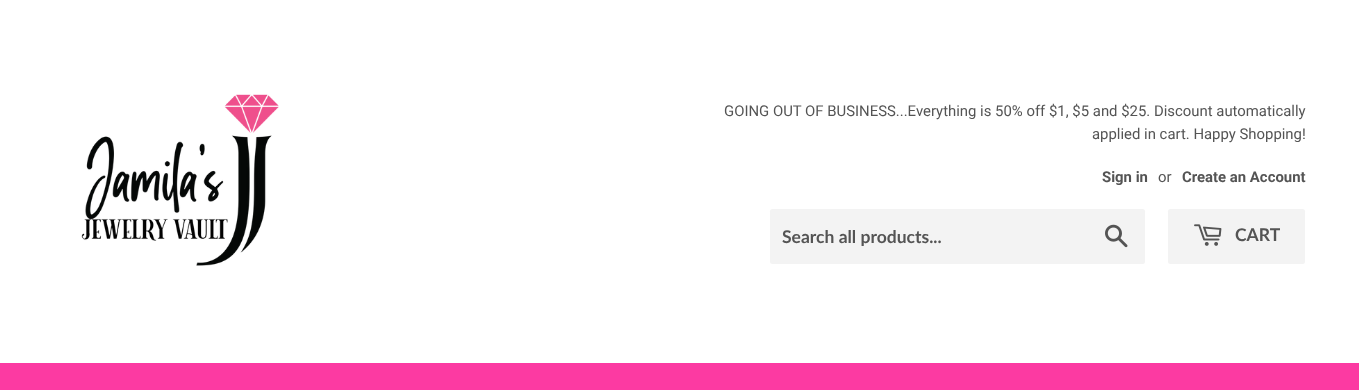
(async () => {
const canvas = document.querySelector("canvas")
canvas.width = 1359
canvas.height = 390
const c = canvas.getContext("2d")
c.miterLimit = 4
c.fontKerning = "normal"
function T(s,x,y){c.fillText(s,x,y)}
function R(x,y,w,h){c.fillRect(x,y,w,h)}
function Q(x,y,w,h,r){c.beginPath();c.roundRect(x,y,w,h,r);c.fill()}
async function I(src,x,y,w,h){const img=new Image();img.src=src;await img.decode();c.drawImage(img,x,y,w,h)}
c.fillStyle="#fff"
R(0,0,1359,390)
await I("1.png",81,94,198,172)
c.font="14.9px Roboto"
c.fillStyle="#545454"
T("GOING OUT OF BUSINESS...Everything is 50% off $1, $5 and $25. Discount automatically",724,116)
T("applied in cart. Happy Shopping!",1092,139)
c.font="bold 14.9px Roboto"
T("Sign in",1102,182)
c.font="14.9px Roboto"
T("or",1158,182)
c.font="bold 14.9px Roboto"
T("Create an Account",1182,182)
c.fillStyle="#f3f3f3"
Q(770,209,375,55,2.5)
c.font="bold 17.5px Lato"
c.fillStyle="#545454"
T("Search all products...",782,243)
await I("2.png",1105,224,23,24)
c.fillStyle="#f3f3f3"
Q(1168,209,137,55,2.5)
await I("3.png",1194,224,28,22)
c.fillStyle="#545454"
T("CART",1235,241)
c.fillStyle="#fc3aa2"
R(0,363,1359,27)
})()
